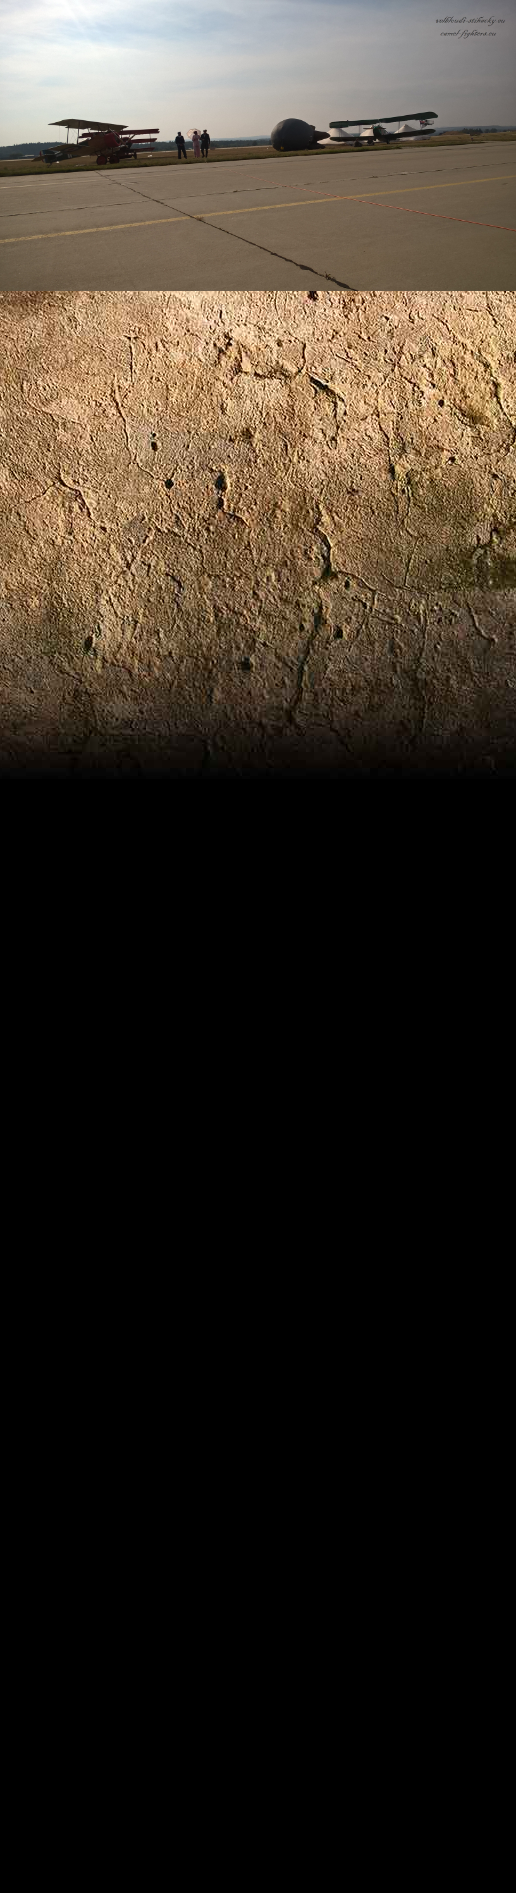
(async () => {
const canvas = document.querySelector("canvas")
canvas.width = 516
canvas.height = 1893
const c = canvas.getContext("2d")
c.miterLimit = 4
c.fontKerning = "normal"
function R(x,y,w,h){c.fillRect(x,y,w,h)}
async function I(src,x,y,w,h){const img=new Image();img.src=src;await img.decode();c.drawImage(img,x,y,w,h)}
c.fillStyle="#000"
R(0,0,516,1893)
await I("1.png",0,291,516,488)
await I("2.png",0,0,516,291)
})()
